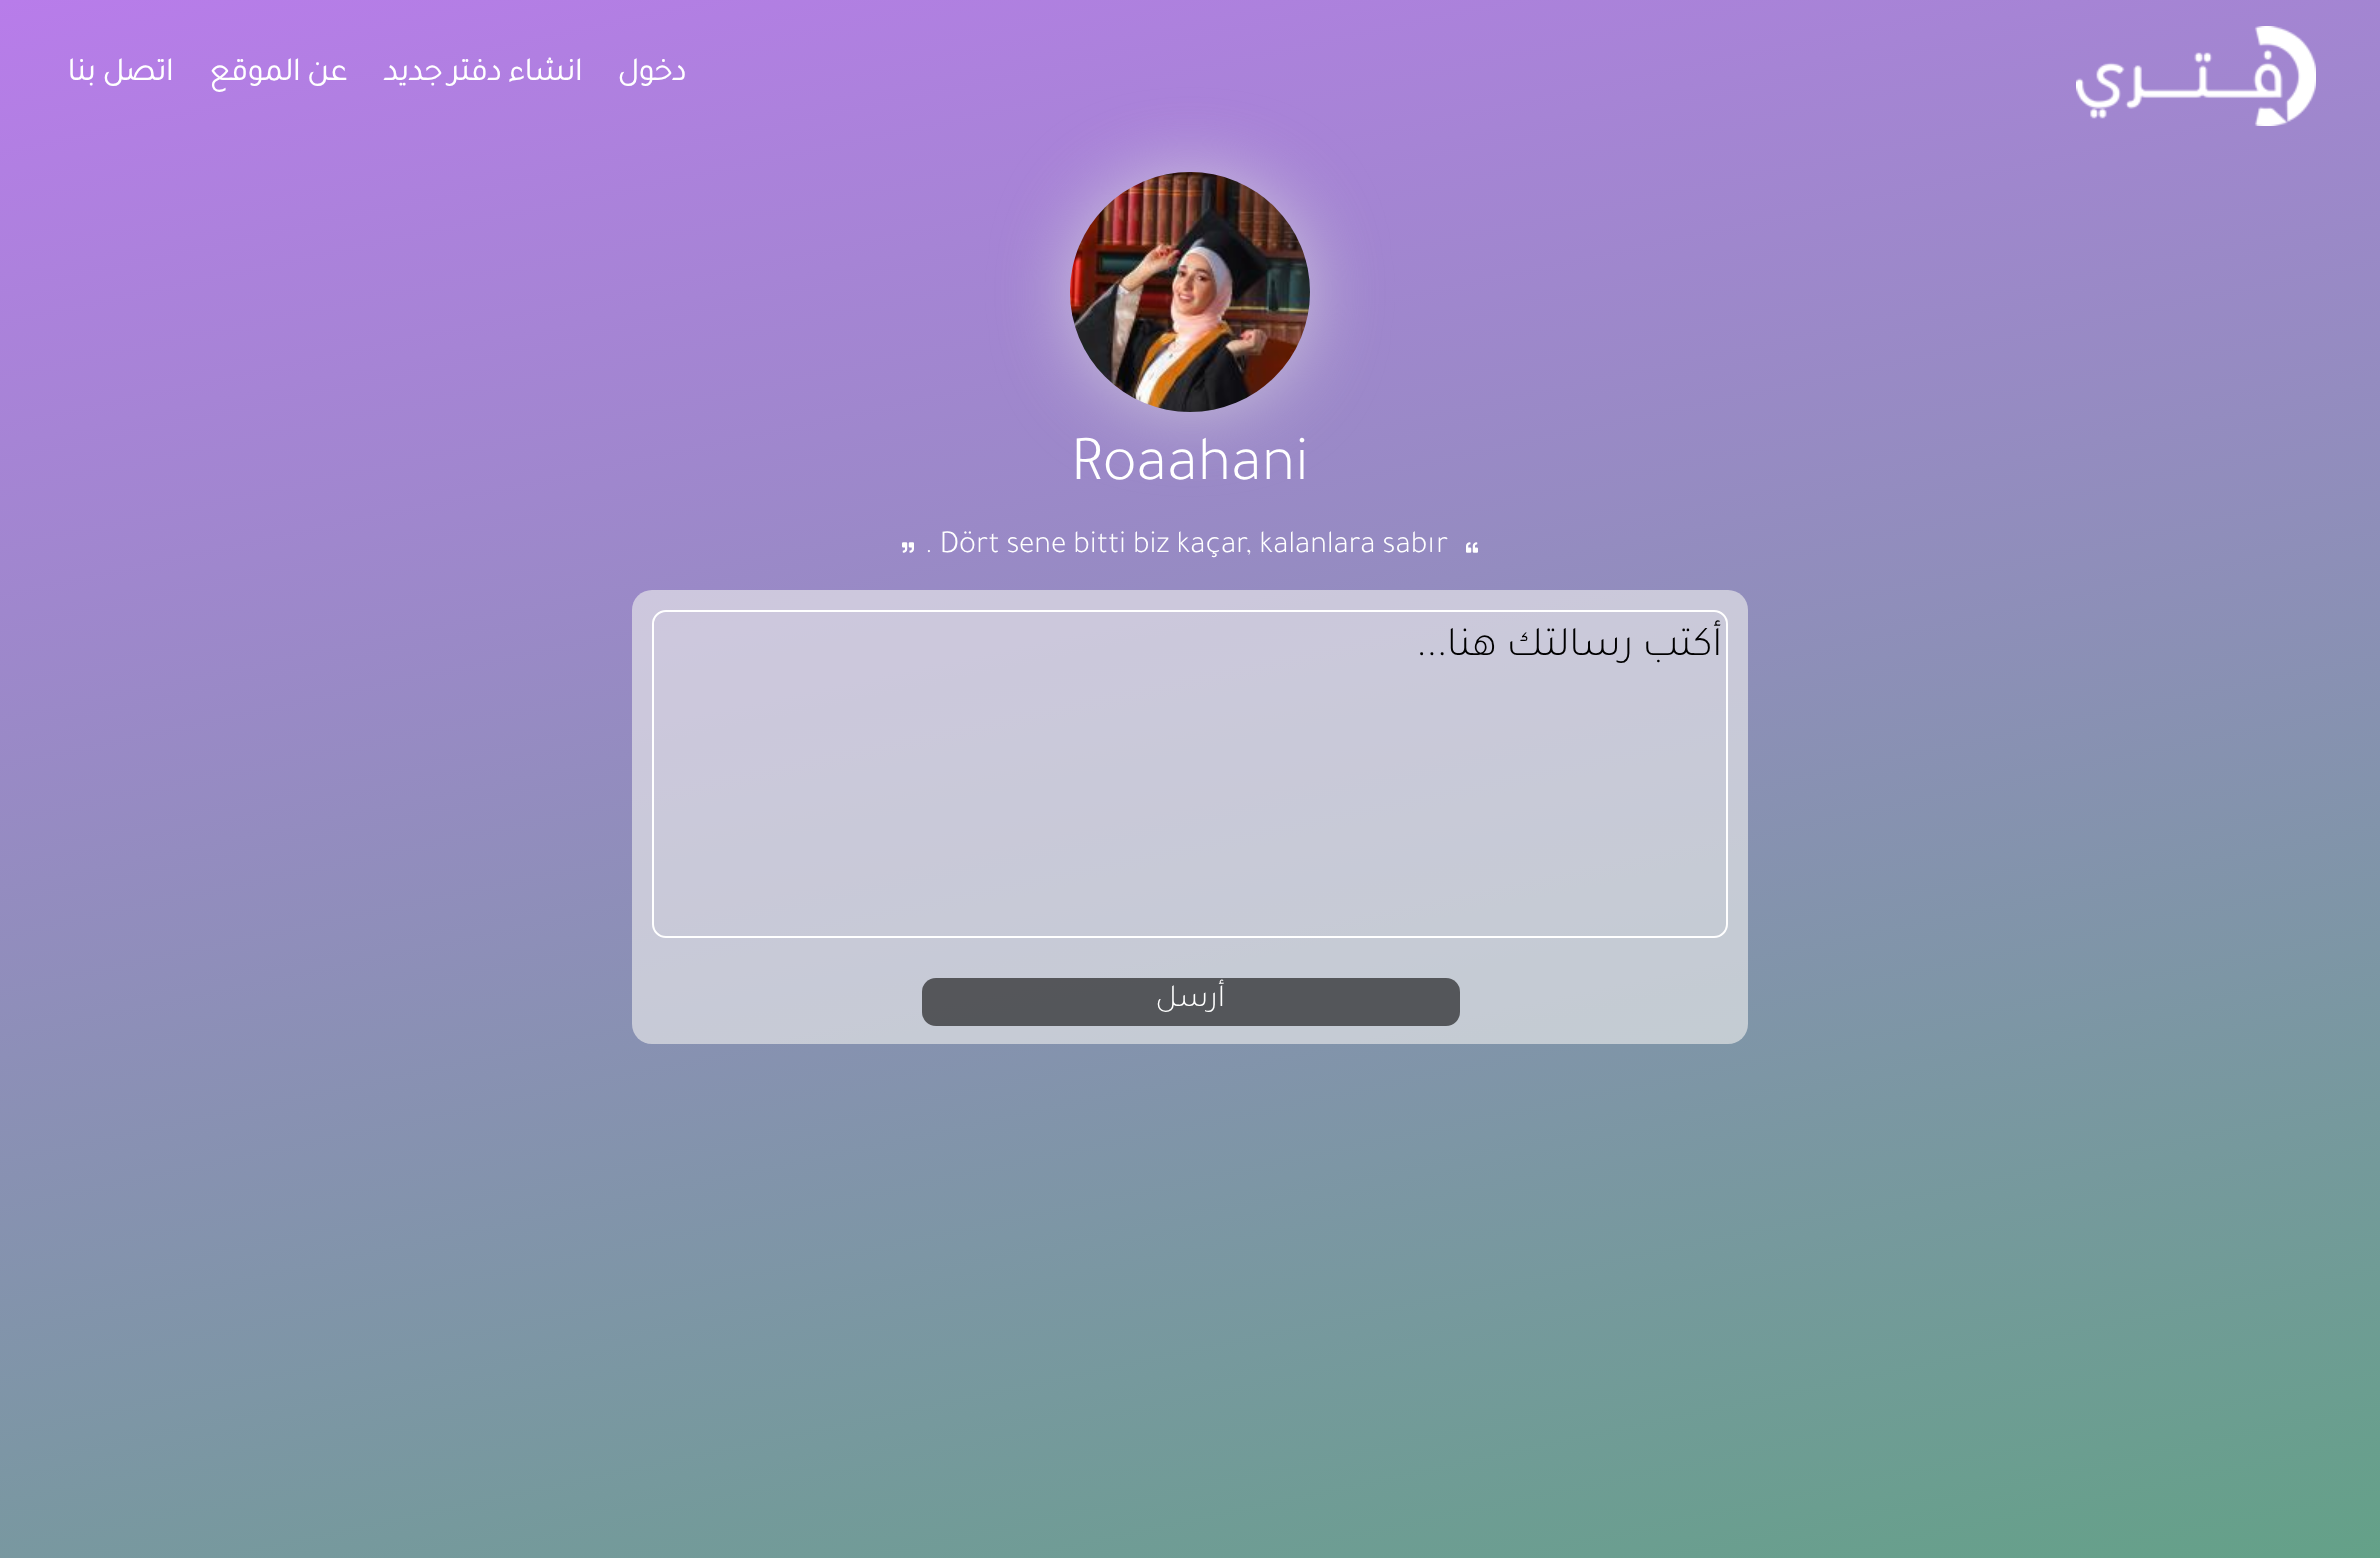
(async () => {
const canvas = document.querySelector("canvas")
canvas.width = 2380
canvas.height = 1558
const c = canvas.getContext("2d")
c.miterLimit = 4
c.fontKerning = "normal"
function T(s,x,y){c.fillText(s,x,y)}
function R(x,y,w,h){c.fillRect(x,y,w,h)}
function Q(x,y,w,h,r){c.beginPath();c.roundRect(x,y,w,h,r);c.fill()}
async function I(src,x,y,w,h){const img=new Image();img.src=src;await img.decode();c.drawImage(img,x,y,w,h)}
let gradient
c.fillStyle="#fff"
R(0,0,2380,1558)
gradient = c.createLinearGradient(1400,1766,980,-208)
gradient.addColorStop(0,"#64a188")
gradient.addColorStop(1,"#b87cea")
c.fillStyle = gradient
R(0,0,2380,1558)
await I("1.png",2076,26,240,100)
c.direction="rtl"
c.font="bold 32px Tajawal"
c.fillStyle="#fff"
T("دخول",686,80)
T("انشاء دفتر جديد",582,80)
T("عن الموقع",347,80)
T("اتصل بنا",173,80)
c.fillStyle="#e1e1e1"
c.filter="blur(44px)"
c.beginPath()
c.roundRect(1086,188,208,208,104)
c.fill()
c.filter="none"
await I("2.png",1070,172,240,240)
c.direction="ltr"
c.font="300 64px Tajawal"
c.fillStyle="#fff"
T("Roaahani",1071,479)
await I("3.png",1466,542,12,11)
c.font="300 32px Tajawal"
T(". Dört sene bitti biz kaçar, kalanlara sabır",925,552)
await I("4.png",902,542,12,11)
c.fillStyle="#eaeaeaa3"
Q(632,590,1116,454,20)
c.beginPath()
c.roundRect(653,611,1074,326,13)
c.strokeStyle="#fff"
c.lineWidth=2
c.stroke()
c.direction="rtl"
c.font="300 42px Tajawal"
c.fillStyle="#000"
T("أكتب رسالتك هنا...",1722,655)
c.fillStyle="#151515a3"
Q(922,978,538,48,14)
c.font="300 32px Tajawal"
c.fillStyle="#fff"
T("أرسل",1225,1006)
})()
